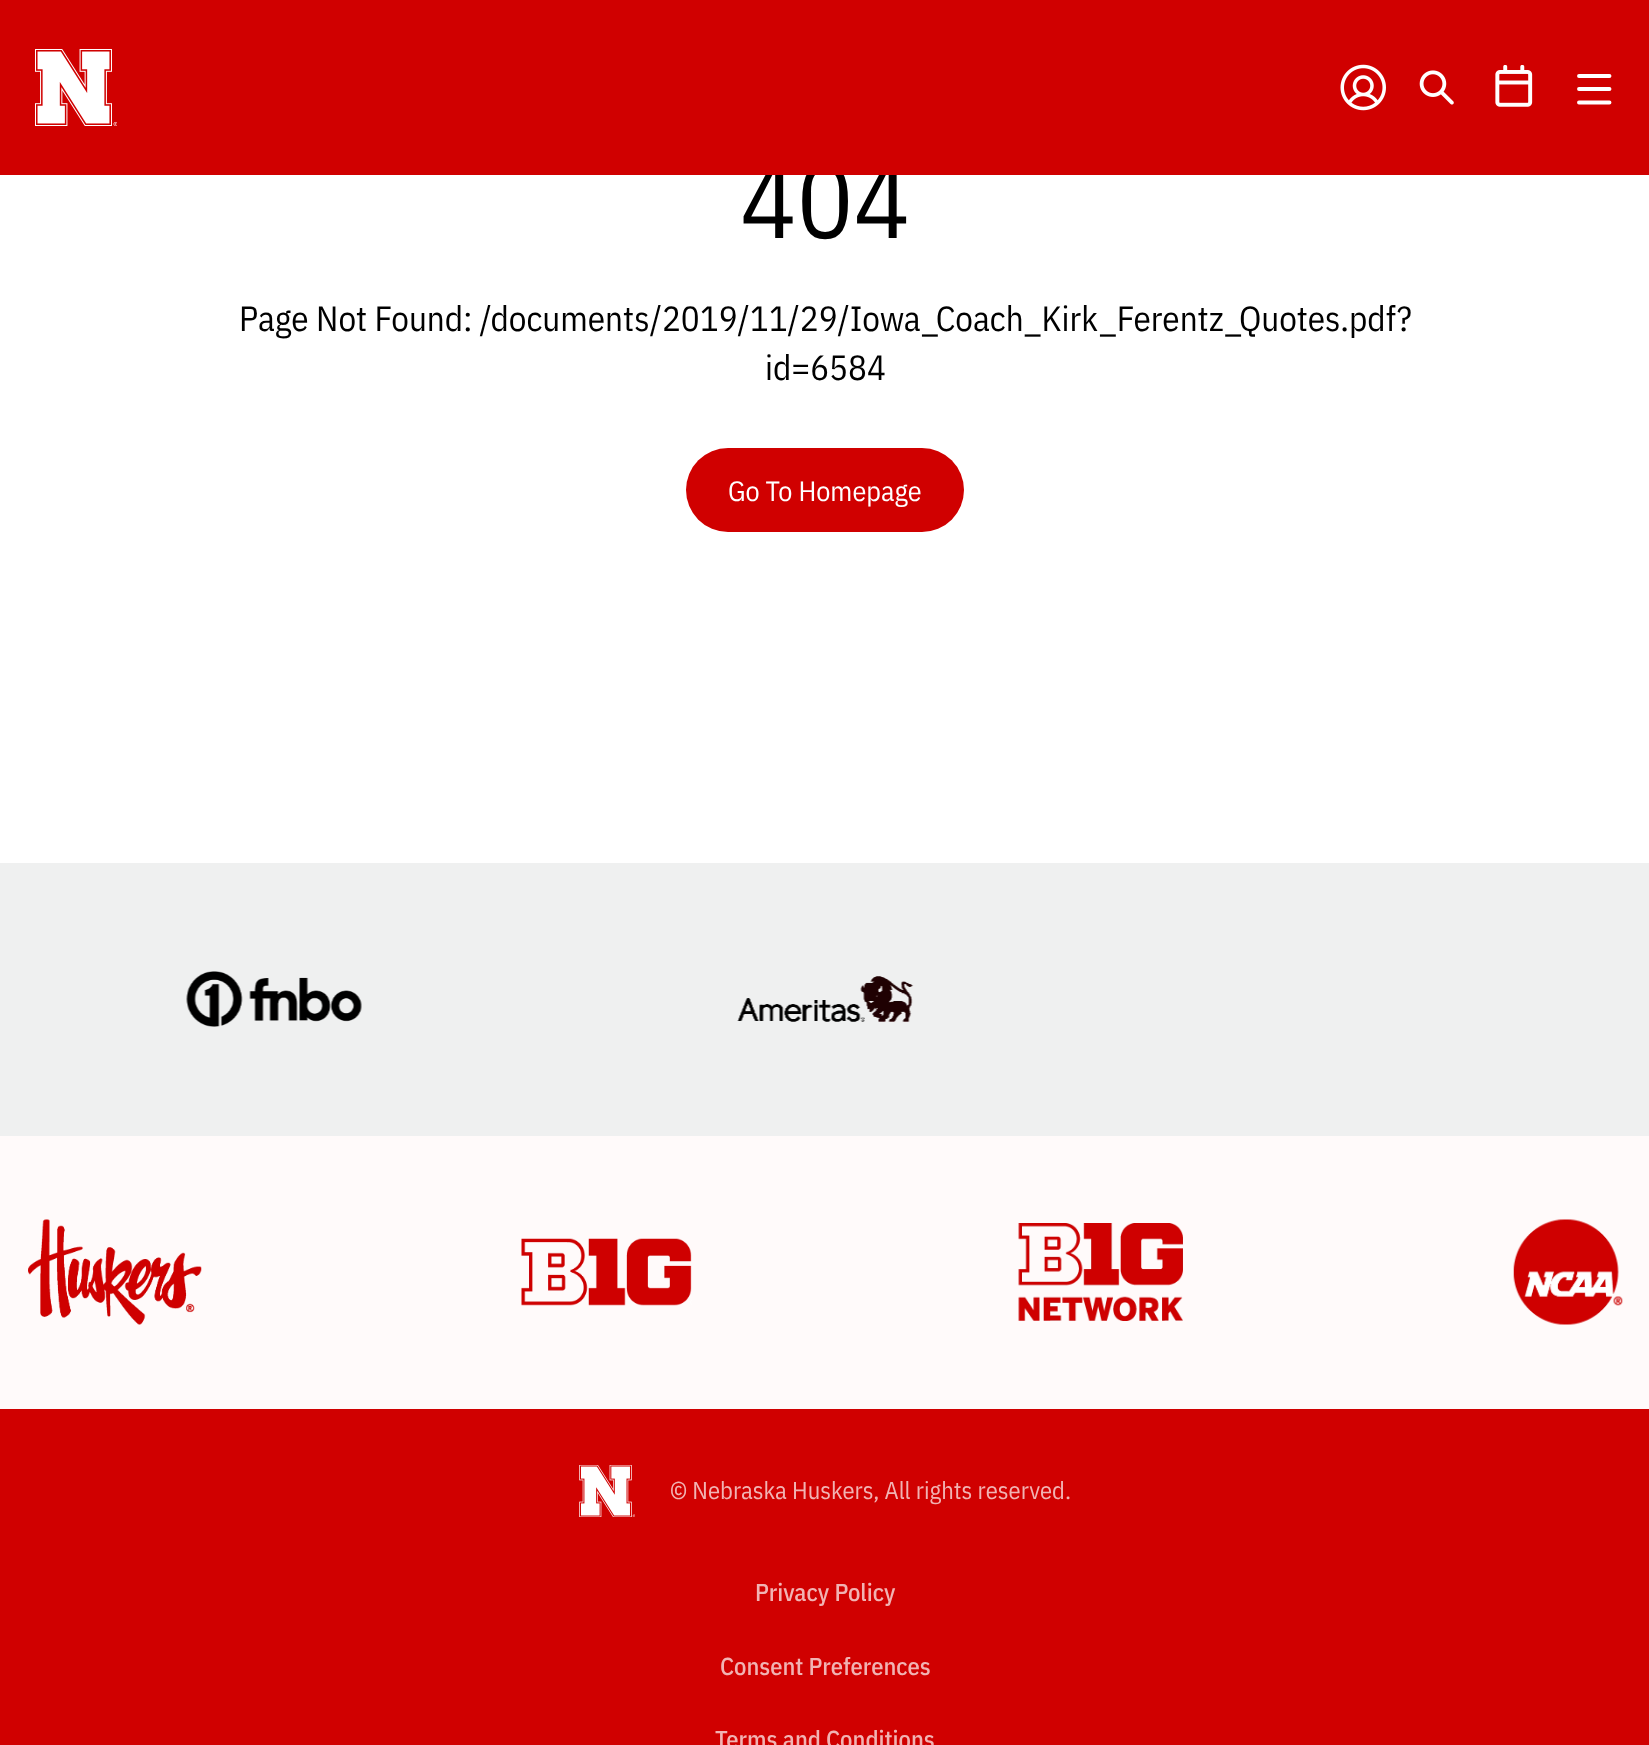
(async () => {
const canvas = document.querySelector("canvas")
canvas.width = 1649
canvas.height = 1745
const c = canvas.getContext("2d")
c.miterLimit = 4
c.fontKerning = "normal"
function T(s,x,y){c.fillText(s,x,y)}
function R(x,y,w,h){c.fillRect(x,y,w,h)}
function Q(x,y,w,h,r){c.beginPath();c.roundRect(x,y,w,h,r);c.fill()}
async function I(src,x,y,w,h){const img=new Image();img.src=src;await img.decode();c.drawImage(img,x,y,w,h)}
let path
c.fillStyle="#fff"
R(0,0,1649,1745)
c.font="105px IBM Plex Sans Condensed"
c.fillStyle="#000"
T("404",740,238)
c.fillStyle="#d00000"
R(0,0,1649,175)
await I("1.png",35,49,82,77)
await I("2.png",1340,64,46,47)
await I("3.png",1419,70,35,35)
await I("4.png",1495,65,38,42)
path = new Path2D("M1579 76h30.5m-30.5 13h30.5m0 13.5h-30.5")
c.strokeStyle="#fff"
c.lineWidth=3.9
c.lineCap="round"
c.stroke(path)
c.font="35px IBM Plex Sans Condensed"
c.fillStyle="#000"
T("Page Not Found: /documents/2019/11/29/Iowa_Coach_Kirk_Ferentz_Quotes.pdf?",239,331)
T("id=6584",765,380)
c.fillStyle="#d00000"
Q(686,448,278,84,42)
c.font="28px IBM Plex Sans Condensed"
c.fillStyle="#fff"
T("Go To Homepage",728,501)
c.fillStyle="#eff0f0"
R(0,863,1649,273)
await I("5.png",186,971,176,56)
await I("6.png",737,976,177,46)
c.fillStyle="#fffafa"
R(0,1136,1649,273)
await I("7.png",28,1219,174,106)
await I("8.png",521,1238,171,68)
await I("9.png",1018,1223,165,98)
await I("10.png",1513,1219,110,106)
c.fillStyle="#d00000"
R(0,1409,1649,336)
await I("11.png",579,1465,56,52)
c.font="24.5px IBM Plex Sans Condensed"
c.fillStyle="#f1b3b3"
T("© Nebraska Huskers, All rights reserved.",670,1499)
c.font="500 24.5px IBM Plex Sans Condensed"
T("Privacy Policy",755,1601)
T("Consent Preferences",720,1675)
T("Terms and Conditions",715,1748)
})()
